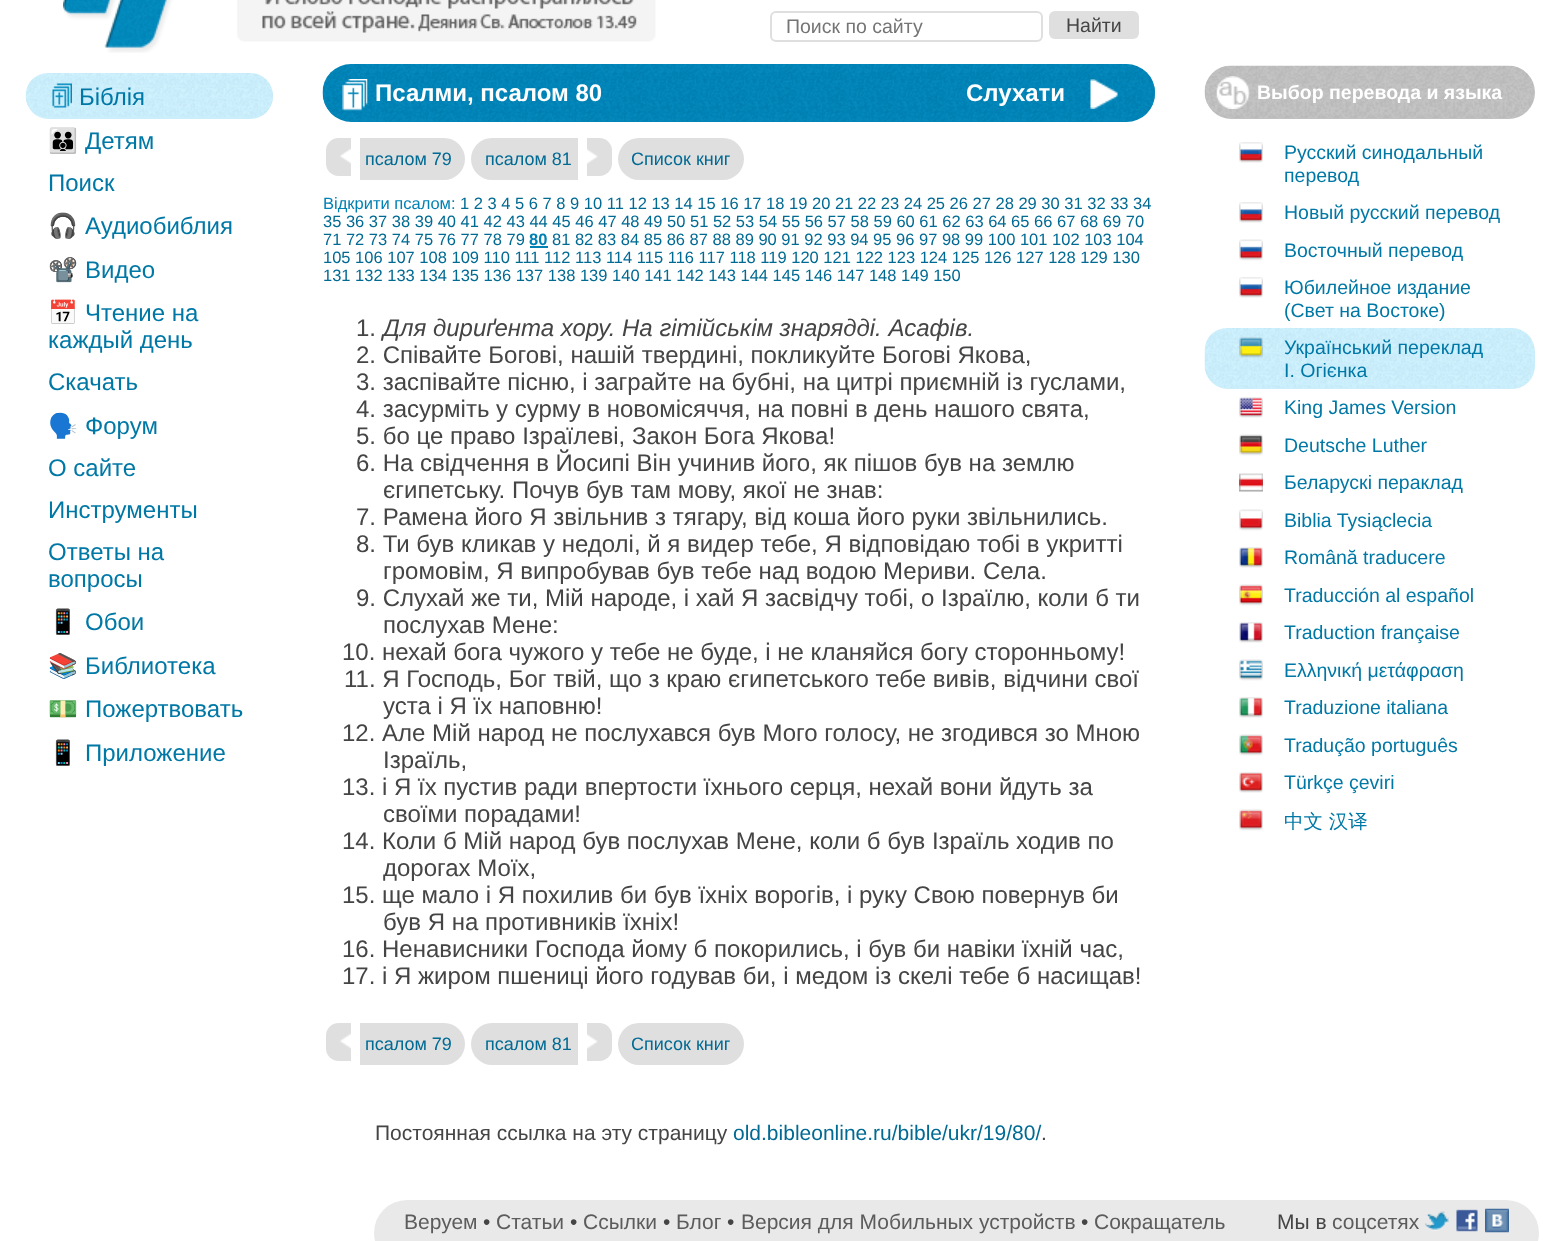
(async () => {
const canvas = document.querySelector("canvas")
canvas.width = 1560
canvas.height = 1241
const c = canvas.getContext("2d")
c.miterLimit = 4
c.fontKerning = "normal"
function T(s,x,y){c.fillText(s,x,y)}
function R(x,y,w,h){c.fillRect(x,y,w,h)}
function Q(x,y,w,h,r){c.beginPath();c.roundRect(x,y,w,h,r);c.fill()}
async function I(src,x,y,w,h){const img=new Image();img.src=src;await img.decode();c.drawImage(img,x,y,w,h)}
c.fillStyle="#fff"
R(0,0,1560,1241)
await I("1.png",63,0,593,53)
c.beginPath()
c.roundRect(771,12,271,29,5)
c.strokeStyle="#dfdfdf"
c.lineWidth=2
c.stroke()
c.font="19.5px Liberation Sans"
c.fillStyle="#757575"
T("Поиск по сайту",786,33)
c.fillStyle="#dfdfdf"
Q(1049,11,90,28,6)
c.fillStyle="#454545"
T("Найти",1066,32)
c.fillStyle="#cbeefb"
Q(26,74,247,45,22.5)
await I("2.png",25,73,248,44)
await I("3.png",52,83,20,25)
c.font="24px Liberation Sans"
c.fillStyle="#0078a6"
T("Біблія",79,105)
c.font="24px Noto Color Emoji"
T("👪",48,149)
c.font="24px Liberation Sans"
T("Детям",85,149)
T("Поиск",48,191)
c.font="24px Noto Color Emoji"
T("🎧",48,234)
c.font="24px Liberation Sans"
T("Аудиобиблия",85,234)
c.font="24px Noto Color Emoji"
T("📽️",48,278)
c.font="24px Liberation Sans"
T("Видео",85,278)
c.font="24px Noto Color Emoji"
T("📅",48,321)
c.font="24px Liberation Sans"
T("Чтение на",85,321)
T("каждый день",48,348)
T("Скачать",48,390)
c.font="24px Noto Color Emoji"
T("🗣️",48,434)
c.font="24px Liberation Sans"
T("Форум",85,434)
T("О сайте",48,476)
T("Инструменты",48,518)
T("Ответы на",48,560)
T("вопросы",48,587)
c.font="24px Noto Color Emoji"
T("📱",48,630)
c.font="24px Liberation Sans"
T("Обои",85,630)
c.font="24px Noto Color Emoji"
T("📚",48,674)
c.font="24px Liberation Sans"
T("Библиотека",85,674)
c.font="24px Noto Color Emoji"
T("💵",48,717)
c.font="24px Liberation Sans"
T("Пожертвовать",85,717)
c.font="24px Noto Color Emoji"
T("📱",48,761)
c.font="24px Liberation Sans"
T("Приложение",85,761)
c.fillStyle="#0284b7"
Q(323,65,832,57,28.5)
await I("4.png",322,64,833,57)
await I("5.png",342,79,26,32)
c.font="bold 24px Liberation Sans"
c.fillStyle="#fff"
T("Псалми, псалом 80",375,101)
T("Слухати",966,101)
await I("6.png",1090,79,28,30)
c.fillStyle="#dfdfdf"
c.beginPath()
c.roundRect(326,138,25,38,[12.5,0,0,12.5])
c.fill()
await I("7.png",340,148,11,16)
c.beginPath()
c.roundRect(360,138,105,42,[0,21,21,0])
c.fill()
c.font="18px Liberation Sans"
c.fillStyle="#006a93"
T("псалом 79",365,165)
c.fillStyle="#dfdfdf"
c.beginPath()
c.roundRect(471,138,107,42,[21,0,0,21])
c.fill()
c.fillStyle="#006a93"
T("псалом 81",485,165)
c.fillStyle="#dfdfdf"
c.beginPath()
c.roundRect(587,138,25,38,[0,12.5,12.5,0])
c.fill()
await I("8.png",587,149,11,15)
Q(618,138,126,42,21)
c.fillStyle="#006a93"
T("Список книг",631,165)
c.font="16.5px Liberation Sans"
c.fillStyle="#0081b4"
T("Відкрити псалом:",323,209)
c.fillStyle="#006a93"
T("1 2 3 4 5 6 7 8 9 10 11 12 13 14 15 16 17 18 19 20 21 22 23 24 25 26 27 28 29 30 31 32 33 34",460,209)
T("35 36 37 38 39 40 41 42 43 44 45 46 47 48 49 50 51 52 53 54 55 56 57 58 59 60 61 62 63 64 65 66 67 68 69 70",323,227)
T("71 72 73 74 75 76 77 78 79",323,245)
c.font="bold 16.5px Liberation Sans"
c.fillStyle="#0081b4"
T("80",529,245)
R(530,246,18,2)
c.font="16.5px Liberation Sans"
c.fillStyle="#006a93"
T("81 82 83 84 85 86 87 88 89 90 91 92 93 94 95 96 97 98 99 100 101 102 103 104",552,245)
T("105 106 107 108 109 110 111 112 113 114 115 116 117 118 119 120 121 122 123 124 125 126 127 128 129 130",323,263)
T("131 132 133 134 135 136 137 138 139 140 141 142 143 144 145 146 147 148 149 150",323,281)
c.font="24px Liberation Sans"
c.fillStyle="#454545"
T("1.",356,336)
c.font="italic 24px Liberation Sans"
T("Для дириґента хору. На гітійськім знарядді. Асафів.",383,336)
c.font="24px Liberation Sans"
T("2. Співайте Богові, нашій твердині, покликуйте Богові Якова,",356,363)
T("3. заспівайте пісню, і заграйте на бубні, на цитрі приємній із гуслами,",356,390)
T("4. засурміть у сурму в новомісяччя, на повні в день нашого свята,",356,417)
T("5. бо це право Ізраїлеві, Закон Бога Якова!",356,444)
T("6. На свідчення в Йосипі Він учинив його, як пішов був на землю",356,471)
T("єгипетську. Почув був там мову, якої не знав:",383,498)
T("7. Рамена його Я звільнив з тягару, від коша його руки звільнились.",356,525)
T("8. Ти був кликав у недолі, й я видер тебе, Я відповідаю тобі в укритті",356,552)
T("громовім, Я випробував був тебе над водою Мериви. Села.",383,579)
T("9. Слухай же ти, Мій народе, і хай Я засвідчу тобі, о Ізраїлю, коли б ти",356,606)
T("послухав Мене:",383,633)
T("10. нехай бога чужого у тебе не буде, і не кланяйся богу сторонньому!",342,660)
T("11. Я Господь, Бог твій, що з краю єгипетського тебе вивів, відчини свої",344,687)
T("уста і Я їх наповню!",383,714)
T("12. Але Мій народ не послухався був Мого голосу, не згодився зо Мною",342,741)
T("Ізраїль,",383,768)
T("13. і Я їх пустив ради впертости їхнього серця, нехай вони йдуть за",342,795)
T("своїми порадами!",383,822)
T("14. Коли б Мій народ був послухав Мене, коли б був Ізраїль ходив по",342,849)
T("дорогах Моїх,",383,876)
T("15. ще мало і Я похилив би був їхніх ворогів, і руку Свою повернув би",342,903)
T("був Я на противників їхніх!",383,930)
T("16. Ненависники Господа йому б покорились, і був би навіки їхній час,",342,957)
T("17. і Я жиром пшениці його годував би, і медом із скелі тебе б насищав!",342,984)
c.fillStyle="#dfdfdf"
c.beginPath()
c.roundRect(326,1023,25,38,[12.5,0,0,12.5])
c.fill()
await I("7.png",340,1033,11,16)
c.beginPath()
c.roundRect(360,1023,105,42,[0,21,21,0])
c.fill()
c.font="18px Liberation Sans"
c.fillStyle="#006a93"
T("псалом 79",365,1050)
c.fillStyle="#dfdfdf"
c.beginPath()
c.roundRect(471,1023,107,42,[21,0,0,21])
c.fill()
c.fillStyle="#006a93"
T("псалом 81",485,1050)
c.fillStyle="#dfdfdf"
c.beginPath()
c.roundRect(587,1023,25,38,[0,12.5,12.5,0])
c.fill()
await I("8.png",587,1034,11,15)
Q(618,1023,126,42,21)
c.fillStyle="#006a93"
T("Список книг",631,1050)
c.font="21px Liberation Sans"
c.fillStyle="#454545"
T("Постоянная ссылка на эту страницу",375,1140)
c.fillStyle="#006a93"
T("old.bibleonline.ru/bible/ukr/19/80/",733,1140)
c.fillStyle="#454545"
T(".",1041,1140)
c.fillStyle="#c0c0c0"
Q(1205,66,330,53,26.5)
await I("9.png",1204,65,330,53)
await I("10.png",1216,76,34,33)
c.font="bold 19.5px Liberation Sans"
c.fillStyle="#fff"
T("Выбор перевода и языка",1257,99)
await I("11.png",1239,142,24,21)
c.font="19.5px Liberation Sans"
c.fillStyle="#0078a6"
T("Русский синодальный",1284,159)
T("перевод",1284,182)
await I("11.png",1239,202,24,21)
T("Новый русский перевод",1284,219)
await I("12.png",1239,239,24,22)
T("Восточный перевод",1284,257)
await I("11.png",1239,277,24,21)
T("Юбилейное издание",1284,294)
T("(Свет на Востоке)",1284,317)
c.fillStyle="#cbeefb"
Q(1205,329,330,60,23)
await I("13.png",1204,328,330,60)
await I("14.png",1239,337,24,21)
c.fillStyle="#0078a6"
T("Український переклад",1284,354)
T("І. Огієнка",1284,377)
await I("15.png",1239,397,24,21)
T("King James Version",1284,414)
await I("16.png",1239,434,24,22)
T("Deutsche Luther",1284,452)
await I("17.png",1239,473,24,19)
T("Беларускі пераклад",1284,489)
await I("18.png",1239,509,24,22)
T("Biblia Tysiąclecia",1284,527)
await I("19.png",1239,547,24,21)
T("Română traducere",1284,564)
await I("20.png",1239,584,24,22)
T("Traducción al español",1284,602)
await I("21.png",1239,622,24,21)
T("Traduction française",1284,639)
await I("22.png",1239,659,24,22)
T("Ελληνική μετάφραση",1284,677)
await I("23.png",1239,697,24,21)
T("Traduzione italiana",1284,714)
await I("24.png",1239,734,24,22)
T("Tradução português",1284,752)
await I("25.png",1239,772,24,21)
T("Türkçe çeviri",1284,789)
await I("26.png",1239,809,24,22)
c.font="500 19.5px WenQuanYi Zen Hei"
T("中文 汉译",1284,828)
c.fillStyle="#e9e9e9"
Q(374,1200,1165,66,33)
c.font="21px Liberation Sans"
c.fillStyle="#5c5c5c"
T("Веруем",404,1229)
c.fillStyle="#454545"
T("•",483,1229)
c.fillStyle="#5c5c5c"
T("Статьи",496,1229)
c.fillStyle="#454545"
T("•",570,1229)
c.fillStyle="#5c5c5c"
T("Ссылки",583,1229)
c.fillStyle="#454545"
T("•",663,1229)
c.fillStyle="#5c5c5c"
T("Блог",676,1229)
c.fillStyle="#454545"
T("•",727,1229)
c.fillStyle="#5c5c5c"
T("Версия для Мобильных устройств",741,1229)
c.fillStyle="#454545"
T("•",1081,1229)
c.fillStyle="#5c5c5c"
T("Сокращатель",1094,1229)
c.fillStyle="#454545"
T("Мы в",1277,1229)
c.fillStyle="#5c5c5c"
T("соцсетях",1332,1229)
await I("27.png",1425,1211,24,20)
await I("28.png",1456,1209,22,23)
await I("29.png",1485,1208,24,25)
})()
